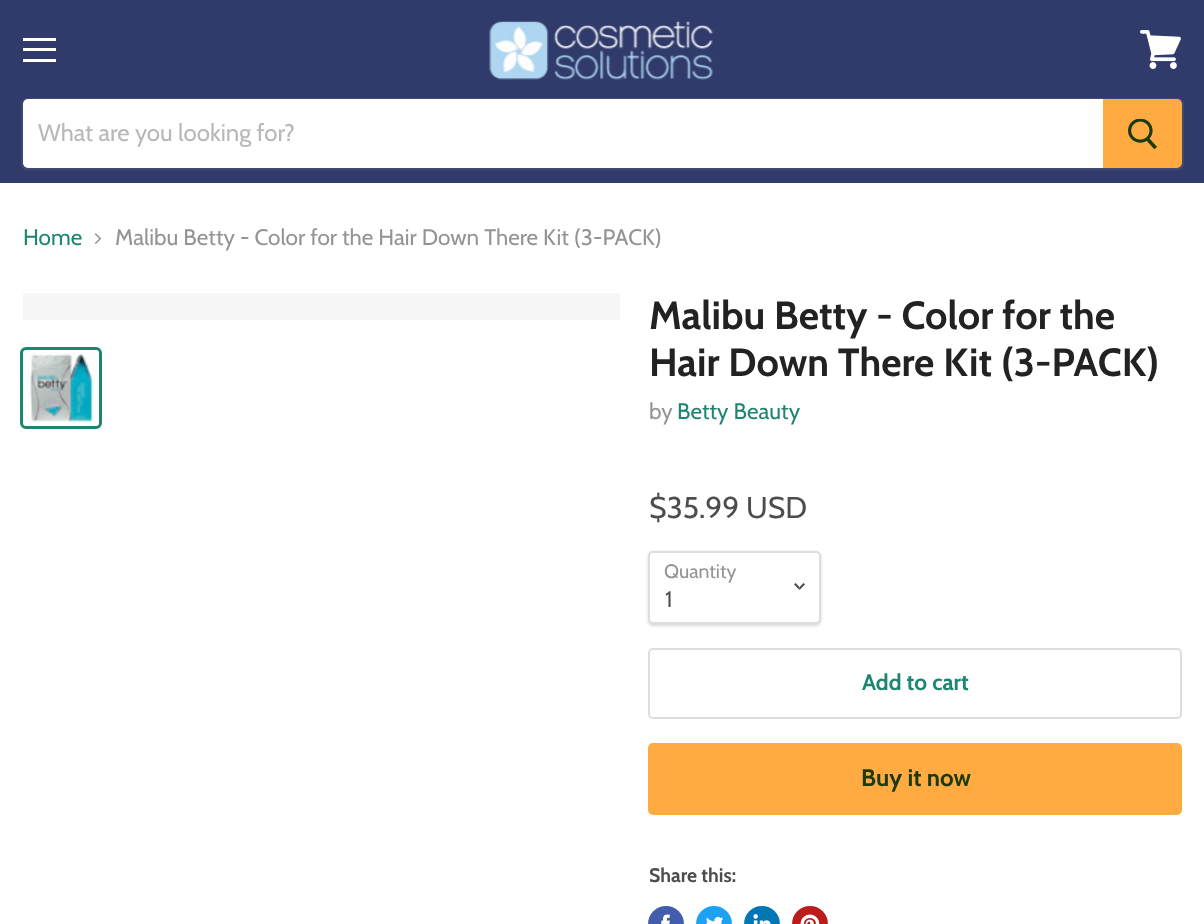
(async () => {
const canvas = document.querySelector("canvas")
canvas.width = 1204
canvas.height = 924
const c = canvas.getContext("2d")
c.miterLimit = 4
c.fontKerning = "normal"
function T(s,x,y){c.fillText(s,x,y)}
function R(x,y,w,h){c.fillRect(x,y,w,h)}
async function I(src,x,y,w,h){const img=new Image();img.src=src;await img.decode();c.drawImage(img,x,y,w,h)}
c.fillStyle="#fff"
R(0,0,1204,924)
c.fillStyle="#303b6b"
R(0,0,1204,183)
c.fillStyle="#fff"
R(23,38,33,3)
R(23,48,33,3)
R(23,59,33,3)
await I("1.png",1140,30,41,39)
await I("2.png",489,21,225,59)
c.beginPath()
c.roundRect(22,99,1161,70,5)
c.strokeStyle="#7f7f7f33"
c.lineWidth=2
c.stroke()
c.beginPath()
c.roundRect(23,99,1080,69,[5,0,0,5])
c.fill()
c.font="24px Cabin"
c.fillStyle="#b8b8b8"
T("What are you looking for?",38,141)
c.fillStyle="#ffab41"
c.beginPath()
c.roundRect(1104,100,77,67,[0,4,4,0])
c.fill()
c.strokeStyle="#ffab41"
c.stroke()
await I("3.png",1128,119,29,31)
c.font="22.5px Cabin"
c.fillStyle="#1e8570"
T("Home",23,245)
await I("4.png",94,233,8,11)
c.fillStyle="#949494"
T("Malibu Betty - Color for the Hair Down There Kit (3-PACK)",115,245)
c.fillStyle="#f7f7f7"
R(23,293,597,27)
c.beginPath()
c.roundRect(21.5,348.5,79,79,4.5)
c.strokeStyle="#1e8570"
c.lineWidth=3
c.stroke()
await I("5.png",26,352,70,71)
c.font="bold 39.4px Cabin"
c.fillStyle="#222"
T("Malibu Betty - Color for the",649,329)
T("Hair Down There Kit (3-PACK)",649,376)
c.font="22.5px Cabin"
c.fillStyle="#949494"
T("by",649,419)
c.fillStyle="#1e8570"
T("Betty Beauty",677,419)
c.font="30px Cabin"
c.fillStyle="#4d4d4d"
T("$35.99 USD",649,518)
c.fillStyle="#00000026"
c.filter="blur(1.5px)"
c.beginPath()
c.roundRect(648,552,173,74,5)
c.fill()
c.filter="none"
c.fillStyle="#fff"
c.beginPath()
c.roundRect(649,552,171,71,4)
c.fill()
c.strokeStyle="#ddd"
c.lineWidth=2
c.stroke()
c.font="19.5px Cabin"
c.fillStyle="#949494"
T("Quantity",664,578)
await I("6.png",794,583,11,7)
c.font="22.5px Cabin"
c.fillStyle="#4d4d4d"
T("1",665,607)
c.beginPath()
c.roundRect(649,649,532,69,4)
c.stroke()
c.font="bold 22.5px Cabin"
c.fillStyle="#1e8570"
T("Add to cart",862,690)
c.fillStyle="#ffab41"
c.beginPath()
c.roundRect(649,744,532,70,4)
c.fill()
c.strokeStyle="#ffab41"
c.stroke()
c.font="bold 24px Cabin"
c.fillStyle="#1a390c"
T("Buy it now",861,786)
c.font="bold 19.5px Cabin"
c.fillStyle="#4d4d4d"
T("Share this:",649,882)
c.fillStyle="#425dab"
c.beginPath()
c.arc(666,924,18,0,7)
c.fill()
await I("7.png",661,914,9,10)
c.fillStyle="#1da1f2"
c.beginPath()
c.arc(714,924,18,0,7)
c.fill()
await I("8.png",706,916,18,8)
c.fillStyle="#0077b5"
c.beginPath()
c.arc(762,924,18,0,7)
c.fill()
await I("9.png",753,914,18,10)
c.fillStyle="#bd1c1c"
c.beginPath()
c.arc(810,924,18,0,7)
c.fill()
await I("10.png",800,914,20,10)
})()
